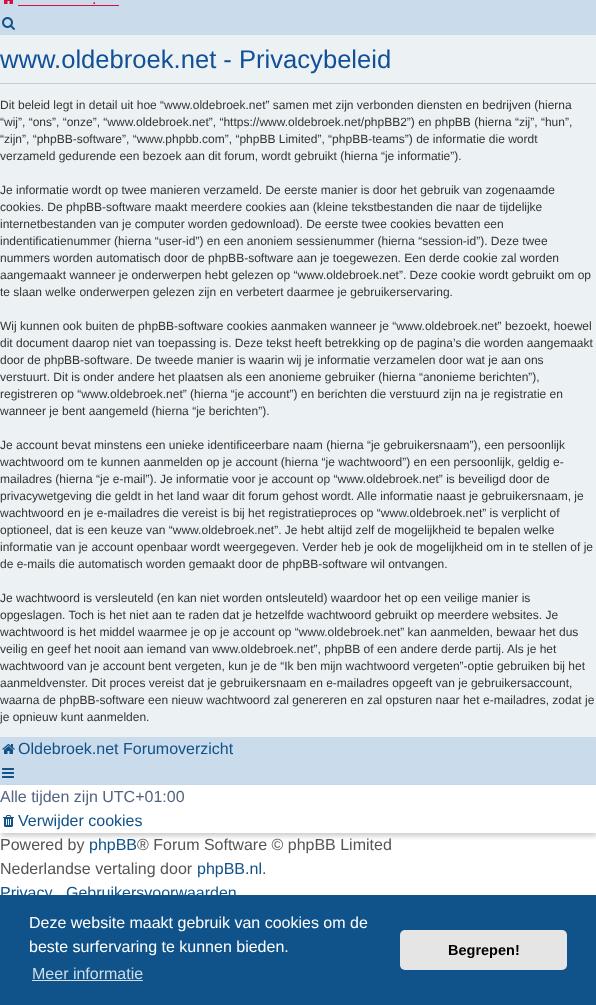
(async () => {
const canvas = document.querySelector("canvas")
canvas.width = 596
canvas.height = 1005
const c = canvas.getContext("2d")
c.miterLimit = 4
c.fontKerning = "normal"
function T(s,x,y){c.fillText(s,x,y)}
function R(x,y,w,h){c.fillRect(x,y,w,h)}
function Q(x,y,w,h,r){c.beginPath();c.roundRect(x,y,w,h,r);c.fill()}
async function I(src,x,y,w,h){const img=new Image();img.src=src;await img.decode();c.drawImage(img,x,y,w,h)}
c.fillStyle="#fff"
R(0,0,596,1005)
c.fillStyle="#cadceb"
R(0,0,596,35)
await I("1.png",4,0,9,4)
c.font="16px Liberation Sans"
c.fillStyle="#d31141"
T(".",92,4)
R(18,5,101,1)
await I("2.png",2,17,13,13)
c.fillStyle="#ecf1f3"
R(0,35,596,702)
c.fillStyle="#ccc"
R(0,83,596,1)
c.font="25.6px Liberation Sans"
c.fillStyle="#115098"
T("www.oldebroek.net - Privacybeleid",0,68)
c.font="12px Liberation Sans"
c.fillStyle="#333"
T("Dit beleid legt in detail uit hoe “www.oldebroek.net” samen met zijn verbonden diensten en bedrijven (hierna",0,109)
T("“wij”, “ons”, “onze”, “www.oldebroek.net”, “https://www.oldebroek.net/phpBB2”) en phpBB (hierna “zij”, “hun”,",0,126)
T("“zijn”, “phpBB-software”, “www.phpbb.com”, “phpBB Limited”, “phpBB-teams”) de informatie die wordt",0,143)
T("verzameld gedurende een bezoek aan dit forum, wordt gebruikt (hierna “je informatie”).",0,160)
T("Je informatie wordt op twee manieren verzameld. De eerste manier is door het gebruik van zogenaamde",0,194)
T("cookies. De phpBB-software maakt meerdere cookies aan (kleine tekstbestanden die naar de tijdelijke",0,211)
T("internetbestanden van je computer worden gedownload). De eerste twee cookies bevatten een",0,228)
T("indentificatienummer (hierna “user-id”) en een anoniem sessienummer (hierna “session-id”). Deze twee",0,245)
T("nummers worden automatisch door de phpBB-software aan je toegewezen. Een derde cookie zal worden",0,262)
T("aangemaakt wanneer je onderwerpen hebt gelezen op “www.oldebroek.net”. Deze cookie wordt gebruikt om op",0,279)
T("te slaan welke onderwerpen gelezen zijn en verbetert daarmee je gebruikerservaring.",0,296)
T("Wij kunnen ook buiten de phpBB-software cookies aanmaken wanneer je “www.oldebroek.net” bezoekt, hoewel",0,330)
T("dit document daarop niet van toepassing is. Deze tekst heeft betrekking op de pagina’s die worden aangemaakt",0,347)
T("door de phpBB-software. De tweede manier is waarin wij je informatie verzamelen door wat je aan ons",0,364)
T("verstuurt. Dit is onder andere het plaatsen als een anonieme gebruiker (hierna “anonieme berichten”),",0,381)
T("registreren op “www.oldebroek.net” (hierna “je account”) en berichten die verstuurd zijn na je registratie en",0,398)
T("wanneer je bent aangemeld (hierna “je berichten”).",0,415)
T("Je account bevat minstens een unieke identificeerbare naam (hierna “je gebruikersnaam”), een persoonlijk",0,449)
T("wachtwoord om te kunnen aanmelden op je account (hierna “je wachtwoord”) en een persoonlijk, geldig e-",0,466)
T("mailadres (hierna “je e-mail”). Je informatie voor je account op “www.oldebroek.net” is beveiligd door de",0,483)
T("privacywetgeving die geldt in het land waar dit forum gehost wordt. Alle informatie naast je gebruikersnaam, je",0,500)
T("wachtwoord en je e-mailadres die vereist is bij het registratieproces op “www.oldebroek.net” is verplicht of",0,517)
T("optioneel, dat is een keuze van “www.oldebroek.net”. Je hebt altijd zelf de mogelijkheid te bepalen welke",0,534)
T("informatie van je account openbaar wordt weergegeven. Verder heb je ook de mogelijkheid om in te stellen of je",0,551)
T("de e-mails die automatisch worden gemaakt door de phpBB-software wil ontvangen.",0,568)
T("Je wachtwoord is versleuteld (en kan niet worden ontsleuteld) waardoor het op een veilige manier is",0,602)
T("opgeslagen. Toch is het niet aan te raden dat je hetzelfde wachtwoord gebruikt op meerdere websites. Je",0,619)
T("wachtwoord is het middel waarmee je op je account op “www.oldebroek.net” kan aanmelden, bewaar het dus",0,636)
T("veilig en geef het nooit aan iemand van www.oldebroek.net”, phpBB of een andere derde partij. Als je het",0,653)
T("wachtwoord van je account bent vergeten, kun je de “Ik ben mijn wachtwoord vergeten”-optie gebruiken bij het",0,670)
T("aanmeldvenster. Dit proces vereist dat je gebruikersnaam en e-mailadres opgeeft van je gebruikersaccount,",0,687)
T("waarna de phpBB-software een nieuw wachtwoord zal genereren en zal opsturen naar het e-mailadres, zodat je",0,704)
T("je opnieuw kunt aanmelden.",0,721)
c.fillStyle="#cadceb"
R(0,737,596,48)
await I("3.png",2,744,13,10)
c.font="16px Liberation Sans"
c.fillStyle="#105289"
T("Oldebroek.net Forumoverzicht",18,754)
await I("4.png",2,768,12,10)
c.fillStyle="#00000033"
c.filter="blur(2.5px)"
c.beginPath()
c.rect(1,788,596,48)
c.fill()
c.filter="none"
c.fillStyle="#fff"
R(0,785,596,48)
c.fillStyle="#536482"
T("Alle tijden zijn UTC+01:00",0,802)
await I("5.png",3,815,11,12)
c.fillStyle="#105289"
T("Verwijder cookies",18,826)
c.fillStyle="#555"
T("Powered by",0,850)
c.fillStyle="#105289"
T("phpBB",89,850)
c.fillStyle="#555"
T("® Forum Software © phpBB Limited",137,850)
T("Nederlandse vertaling door",0,874)
c.fillStyle="#105289"
T("phpBB.nl",197,874)
c.fillStyle="#555"
T(".",262,874)
c.fillStyle="#105289"
T("Privacy",0,898)
T("Gebruikersvoorwaarden",66,898)
c.fillStyle="#0f538a"
R(0,895,596,110)
c.fillStyle="#fff"
T("Deze website maakt gebruik van cookies om de",29,928)
T("beste surfervaring te kunnen bieden.",29,952)
c.fillStyle="#cfdde8"
T("Meer informatie",32,979)
R(32,980,111,1)
c.fillStyle="#e5e5e5"
Q(400,930,167,40,5)
c.font="bold 14.5px Liberation Sans"
c.fillStyle="#000"
T("Begrepen!",448,955)
})()
